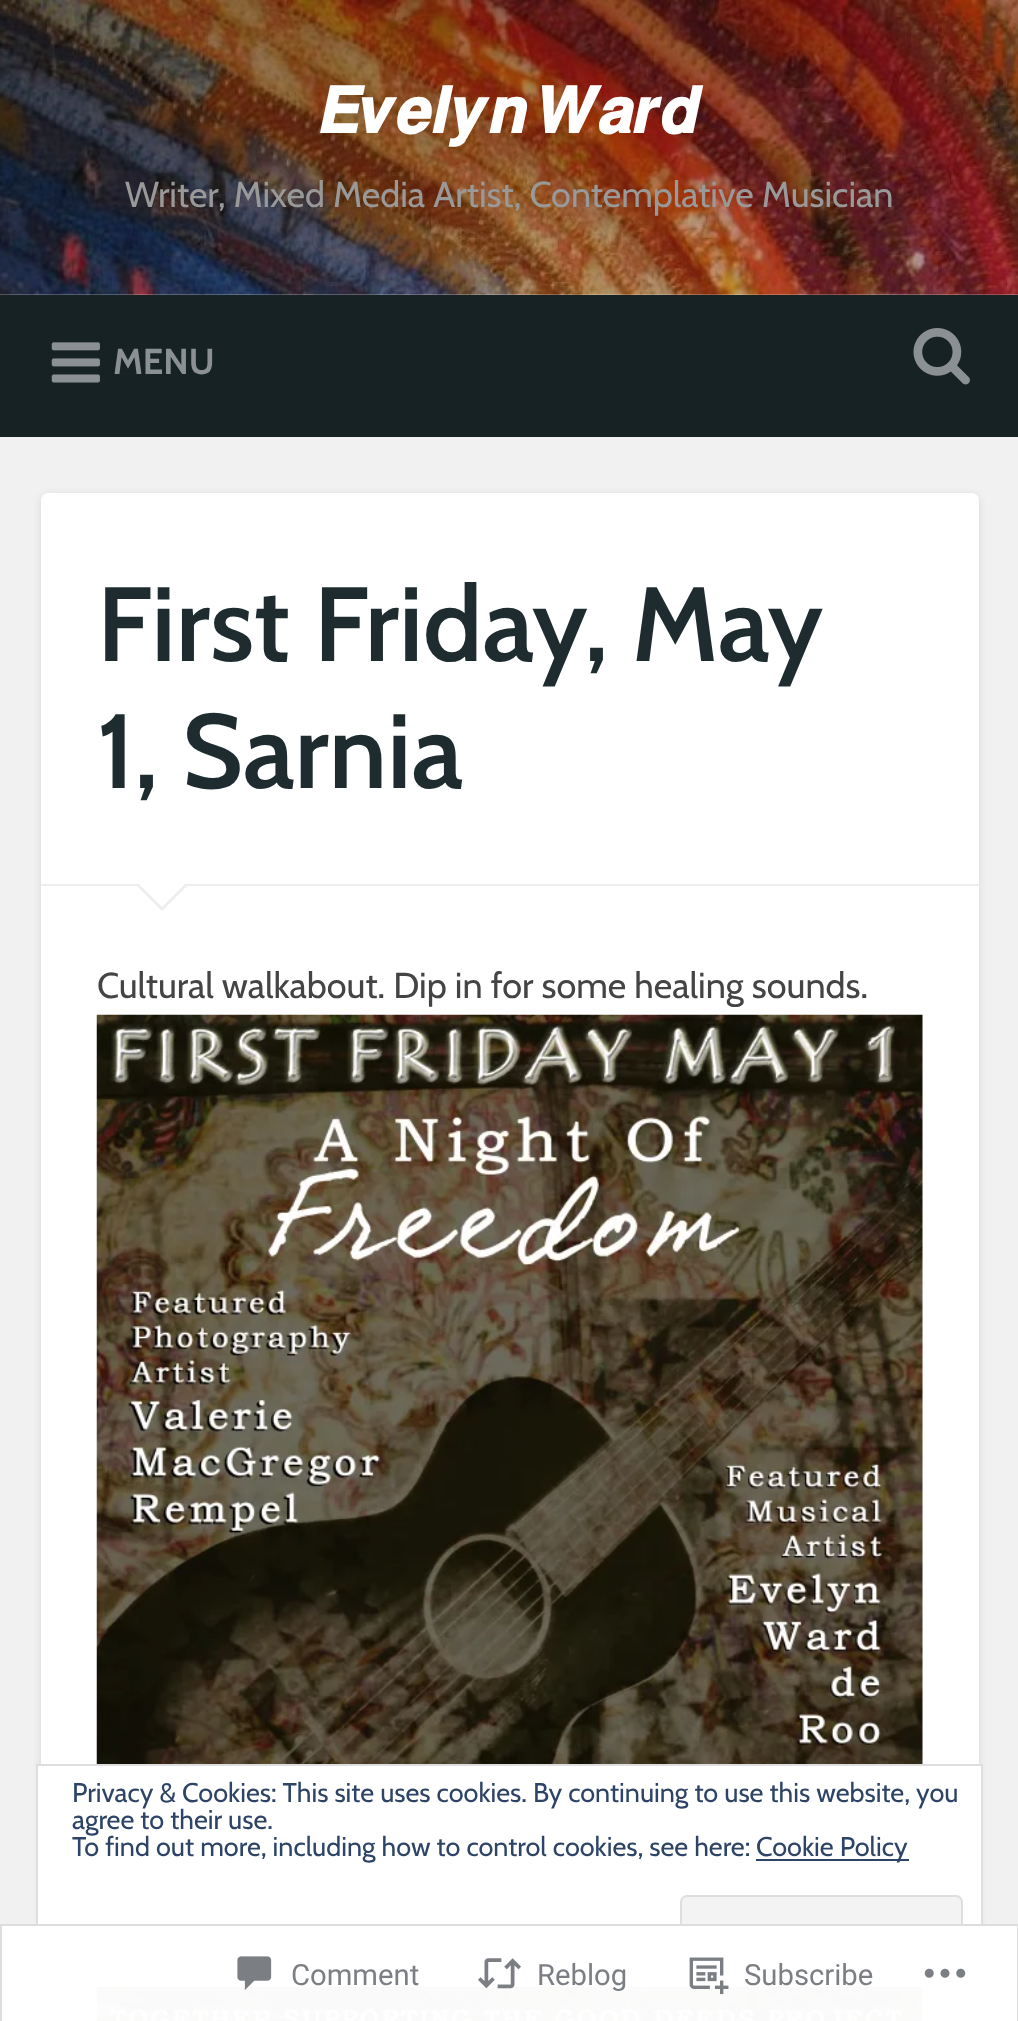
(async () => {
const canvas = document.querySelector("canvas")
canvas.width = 1018
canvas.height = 2021
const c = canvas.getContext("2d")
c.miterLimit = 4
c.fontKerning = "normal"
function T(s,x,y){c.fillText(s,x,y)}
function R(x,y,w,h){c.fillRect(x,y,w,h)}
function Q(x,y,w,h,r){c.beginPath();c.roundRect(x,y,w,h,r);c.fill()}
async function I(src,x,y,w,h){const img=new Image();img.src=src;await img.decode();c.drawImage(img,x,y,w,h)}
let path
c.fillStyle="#f1f1f2"
R(0,0,1018,2021)
await I("1.png",0,0,1018,295)
c.wordSpacing="-2px"
c.font="bold 63px FreeSans"
c.fillStyle="#fff"
T("𝑬𝒗𝒆𝒍𝒚𝒏 𝑾𝒂𝒓𝒅",319,133)
c.wordSpacing="0px"
c.font="36px Cabin"
c.fillStyle="#999"
T("Writer, Mixed Media Artist, Contemplative Musician",125,207)
c.fillStyle="#172225"
R(0,295,1018,142)
await I("2.png",51,342,49,41)
c.font="bold 36px Cabin"
c.fillStyle="#8b9192"
T("MENU",113,374)
await I("3.png",913,328,57,57)
c.fillStyle="#0000001a"
c.filter="blur(4.5px)"
c.beginPath()
c.roundRect(41,495,938,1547,7)
c.fill()
c.filter="none"
c.fillStyle="#fff"
Q(41,493,938,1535,7)
c.fillStyle="#eee"
R(41,884,938,2)
c.font="600 105.25px Cabin"
c.fillStyle="#1e2c30"
T("First Friday, May",97,661)
T("1, Sarnia",97,788)
c.fillStyle="#eee"
path = new Path2D("M135 884h54l-27 27z")
c.fill(path)
c.fillStyle="#fff"
path = new Path2D("M137 882h50l-25 25z")
c.fill(path)
c.font="36px Cabin"
c.fillStyle="#444"
T("Cultural walkabout. Dip in for some healing sounds.",97,998)
await I("4.png",96,1014,827,1007)
c.fillStyle="#fff"
c.beginPath()
c.rect(37,1765,945,221)
c.fill()
c.strokeStyle="#dedede"
c.lineWidth=2
c.stroke()
c.font="27px Cabin"
c.fillStyle="#2e4467"
T("Privacy & Cookies: This site uses cookies. By continuing to use this website, you",72,1802)
T("agree to their use.",72,1829)
T("To find out more, including how to control cookies, see here:",72,1856)
R(756,1859,153,2)
T("Cookie Policy",756,1856)
c.fillStyle="#f3f3f3"
c.beginPath()
c.roundRect(681,1896,281,70,6)
c.fill()
c.stroke()
c.fillStyle="#fffffffa"
R(0,1924,1018,97)
c.strokeStyle="#dcdcdefa"
c.strokeRect(1,1925,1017,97)
await I("5.png",237,1956,35,34)
c.font="29.25px Roboto"
c.fillStyle="#7b7f84"
T("Comment",291,1985)
await I("6.png",478,1958,43,31)
T("Reblog",537,1985)
await I("7.png",689,1957,40,38)
T("Subscribe",744,1985)
await I("8.png",924,1968,42,10)
})()
